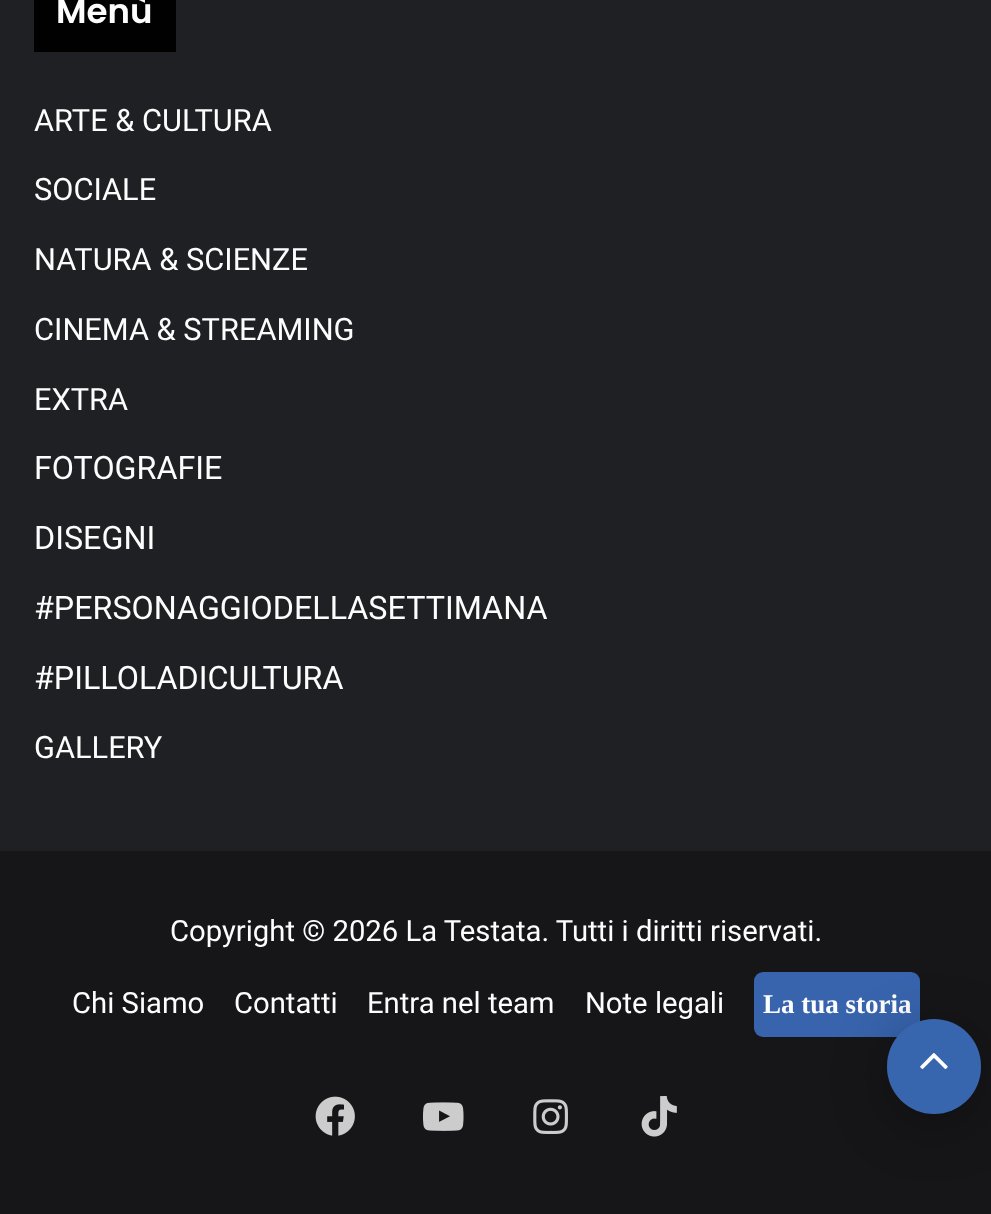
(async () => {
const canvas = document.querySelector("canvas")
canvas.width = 991
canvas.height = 1214
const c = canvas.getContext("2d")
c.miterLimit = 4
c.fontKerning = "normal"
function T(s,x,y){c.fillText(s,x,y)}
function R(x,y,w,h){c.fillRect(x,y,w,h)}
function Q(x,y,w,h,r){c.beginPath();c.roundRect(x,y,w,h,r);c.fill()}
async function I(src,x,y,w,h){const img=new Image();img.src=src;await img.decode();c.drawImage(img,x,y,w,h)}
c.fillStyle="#1f2024"
R(0,0,991,1214)
c.fillStyle="#010101"
R(34,0,142,52)
c.font="600 34px Poppins"
c.fillStyle="#fdfdfd"
T("Menù",56,23)
c.font="30.75px Roboto"
T("ARTE & CULTURA",34,131)
T("SOCIALE",34,200)
T("NATURA & SCIENZE",34,270)
T("CINEMA & STREAMING",34,340)
T("EXTRA",34,410)
c.font="32.25px Roboto"
T("FOTOGRAFIE",34,479)
T("DISEGNI",34,549)
T("#PERSONAGGIODELLASETTIMANA",34,619)
T("#PILLOLADICULTURA",34,689)
c.font="30.75px Roboto"
T("GALLERY",34,758)
c.fillStyle="#161619"
R(0,851,991,363)
c.font="29.25px Roboto"
c.fillStyle="#fdfdfd"
T("Copyright © 2026 La Testata. Tutti i diritti riservati.",170,941)
T("Chi Siamo",72,1013)
T("Contatti",234,1013)
T("Entra nel team",367,1013)
T("Note legali",585,1013)
c.fillStyle="#3864ad"
Q(754,972,166,65,9)
c.font="bold 27px Liberation Serif"
c.fillStyle="#fdfdfd"
T("La tua storia",763,1013)
await I("1.png",315,1096,40,40)
await I("2.png",423,1102,41,29)
await I("3.png",533,1099,35,35)
await I("4.png",641,1096,36,41)
c.fillStyle="#0000004d"
c.filter="blur(28px)"
c.beginPath()
c.roundRect(887,1031,94,94,47)
c.fill()
c.filter="none"
c.fillStyle="#3765ae"
Q(887,1019,94,95,47)
await I("5.png",920,1053,28,16)
})()
